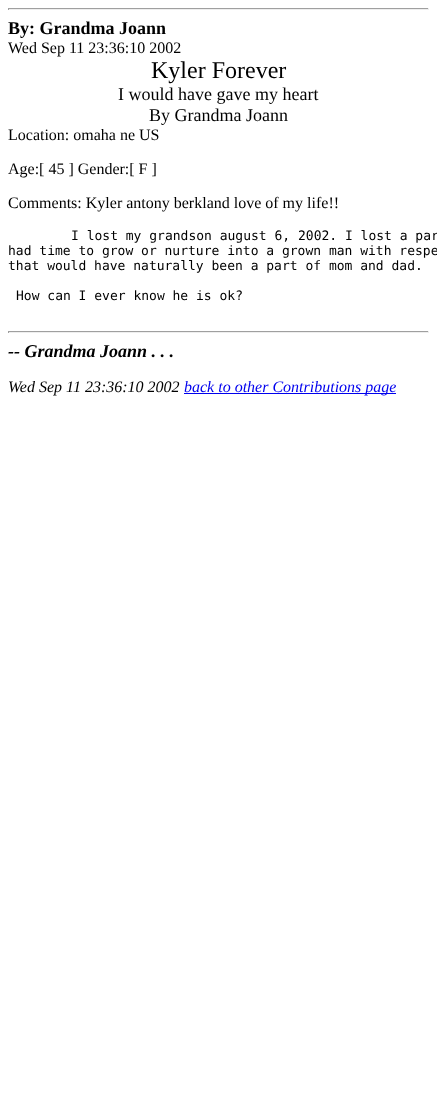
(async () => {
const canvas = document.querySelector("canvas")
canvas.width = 437
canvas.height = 1097
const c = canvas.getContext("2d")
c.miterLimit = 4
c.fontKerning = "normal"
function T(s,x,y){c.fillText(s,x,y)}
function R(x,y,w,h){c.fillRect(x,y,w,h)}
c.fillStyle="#fff"
R(0,0,437,1097)
c.fillStyle="#9f9f9f"
R(8,8,421,1)
c.fillStyle="#eee"
R(428,8,1,2)
R(8,9,421,1)
c.fillStyle="#9f9f9f"
R(8,8,1,2)
c.font="bold 18px Liberation Serif"
c.fillStyle="#000"
T("By: Grandma Joann",8,34)
c.font="16px Liberation Serif"
T("Wed Sep 11 23:36:10 2002",8,53)
c.font="24px Liberation Serif"
T("Kyler Forever",151,78)
c.font="18px Liberation Serif"
T("I would have gave my heart",118,100)
T("By Grandma Joann",149,121)
c.font="16px Liberation Serif"
T("Location: omaha ne US",8,140)
T("Age:[ 45 ] Gender:[ F ]",8,174)
T("Comments: Kyler antony berkland love of my life!!",8,208)
c.font="13px DejaVu Sans Mono"
T("I lost my grandson august 6, 2002. I lost a par",71,240)
T("had time to grow or nurture into a grown man with respe",8,255)
T("that would have naturally been a part of mom and dad.",8,270)
T("How can I ever know he is ok?",16,300)
c.fillStyle="#9f9f9f"
R(8,331,421,1)
c.fillStyle="#eee"
R(428,331,1,2)
R(8,332,421,1)
c.fillStyle="#9f9f9f"
R(8,331,1,2)
c.font="italic bold 18px Liberation Serif"
c.fillStyle="#000"
T("-- Grandma Joann . . .",8,357)
c.font="italic 16px Liberation Serif"
T("Wed Sep 11 23:36:10 2002",8,392)
c.fillStyle="#00e"
R(184,393,212,1)
T("back to other Contributions page",184,392)
})()
